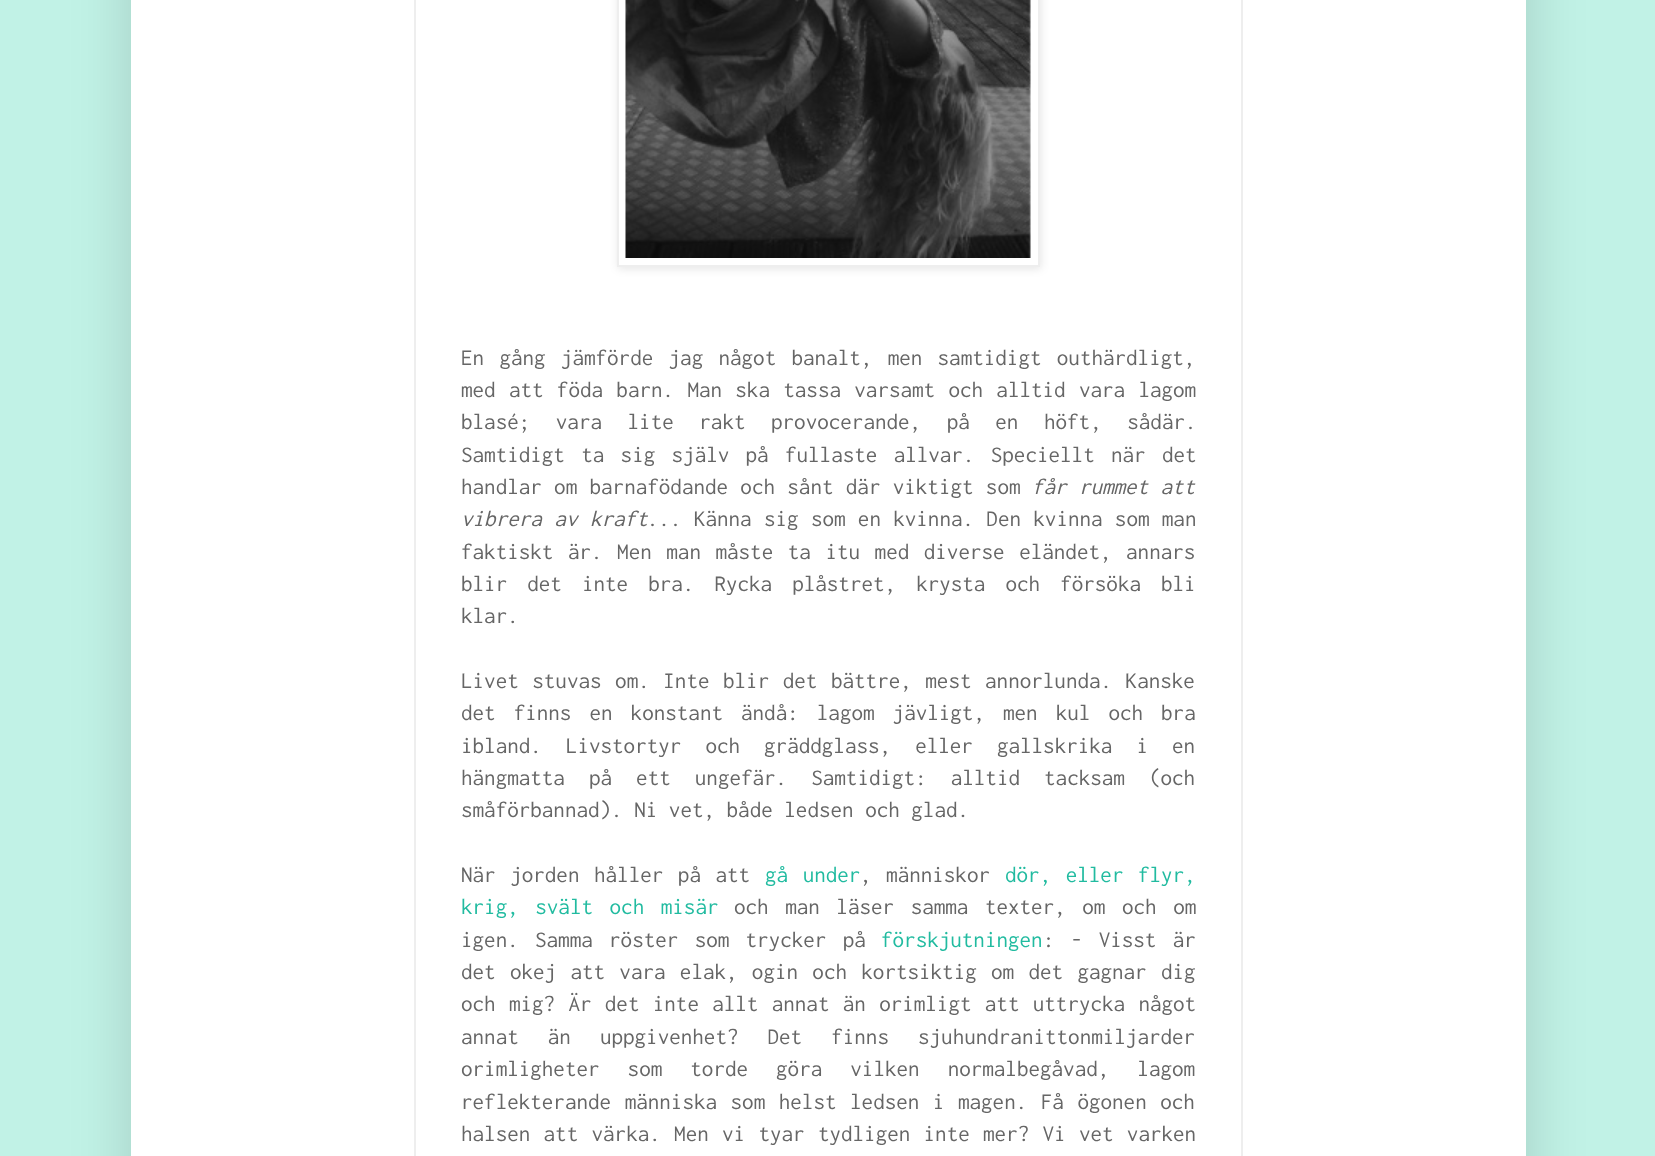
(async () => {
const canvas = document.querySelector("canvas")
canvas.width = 1655
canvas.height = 1156
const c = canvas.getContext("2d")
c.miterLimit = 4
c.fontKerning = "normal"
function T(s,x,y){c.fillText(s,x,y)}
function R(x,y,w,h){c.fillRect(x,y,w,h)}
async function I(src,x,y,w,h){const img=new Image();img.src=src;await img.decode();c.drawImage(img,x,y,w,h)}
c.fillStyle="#c1f2e6"
R(0,0,1655,1156)
c.fillStyle="#00000026"
c.filter="blur(30px)"
c.beginPath()
c.rect(131,-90,1395,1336)
c.fill()
c.filter="none"
c.fillStyle="#fff"
R(131,0,1395,1156)
c.fillStyle="#eee"
R(414,0,2,1156)
c.fillStyle="#0000001a"
c.filter="blur(4px)"
c.beginPath()
c.rect(618,-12,423,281)
c.fill()
c.filter="none"
c.fillStyle="#fff"
c.beginPath()
c.rect(618,-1,421,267)
c.fill()
c.strokeStyle="#eee"
c.lineWidth=2
c.stroke()
await I("1.png",625,0,406,258)
c.wordSpacing="3.75px"
c.font="23.1px Inconsolata"
c.fillStyle="#666"
T("En gång jämförde jag något banalt, men samtidigt outhärdligt,",461,365)
c.wordSpacing="1.75px"
T("med att föda barn. Man ska tassa varsamt och alltid vara lagom",461,397)
c.wordSpacing="14px"
T("blasé; vara lite rakt provocerande, på en höft, sådär.",461,429)
c.wordSpacing="4.75px"
T("Samtidigt ta sig själv på fullaste allvar. Speciellt när det",461,462)
c.wordSpacing="0.75px"
T("handlar om barnafödande och sånt där viktigt som",461,494)
c.font="italic 23.1px Inconsolata"
T("får rummet att",1032,494)
c.wordSpacing="1px"
T("vibrera av kraft",461,526)
c.wordSpacing="0.75px"
c.font="23.1px Inconsolata"
T("... Känna sig som en kvinna. Den kvinna som man",647,526)
c.wordSpacing="3px"
T("faktiskt är. Men man måste ta itu med diverse eländet, annars",461,559)
c.wordSpacing="8.5px"
T("blir det inte bra. Rycka plåstret, krysta och försöka bli",461,591)
c.wordSpacing="0px"
T("klar.",461,623)
c.wordSpacing="2px"
T("Livet stuvas om. Inte blir det bättre, mest annorlunda. Kanske",461,688)
c.wordSpacing="6.5px"
T("det finns en konstant ändå: lagom jävligt, men kul och bra",461,720)
c.wordSpacing="12.5px"
T("ibland. Livstortyr och gräddglass, eller gallskrika i en",461,753)
T("hängmatta på ett ungefär. Samtidigt: alltid tacksam (och",461,785)
c.wordSpacing="0px"
T("småförbannad). Ni vet, både ledsen och glad.",461,817)
c.wordSpacing="3px"
T("När jorden håller på att",461,882)
c.fillStyle="#21bba0"
T("gå under",765,882)
c.fillStyle="#666"
T(", människor",860,882)
c.fillStyle="#21bba0"
T("dör, eller flyr,",1005,882)
c.wordSpacing="5px"
T("krig, svält och misär",461,914)
c.fillStyle="#666"
T("och man läser samma texter, om och om",734,914)
c.wordSpacing="4.75px"
T("igen. Samma röster som trycker på",461,947)
c.wordSpacing="0px"
c.fillStyle="#21bba0"
T("förskjutningen",881,947)
c.wordSpacing="4.75px"
c.fillStyle="#666"
T(": - Visst är",1043,947)
c.wordSpacing="2.75px"
T("det okej att vara elak, ogin och kortsiktig om det gagnar dig",461,979)
c.wordSpacing="1.75px"
T("och mig? Är det inte allt annat än orimligt att uttrycka något",461,1011)
c.wordSpacing="17.5px"
T("annat än uppgivenhet? Det finns sjuhundranittonmiljarder",461,1044)
c.wordSpacing="16.5px"
T("orimligheter som torde göra vilken normalbegåvad, lagom",461,1076)
c.wordSpacing="2px"
T("reflekterande människa som helst ledsen i magen. Få ögonen och",461,1109)
c.wordSpacing="1.75px"
T("halsen att värka. Men vi tyar tydligen inte mer? Vi vet varken",461,1141)
c.fillStyle="#eee"
R(1241,0,2,1156)
})()
